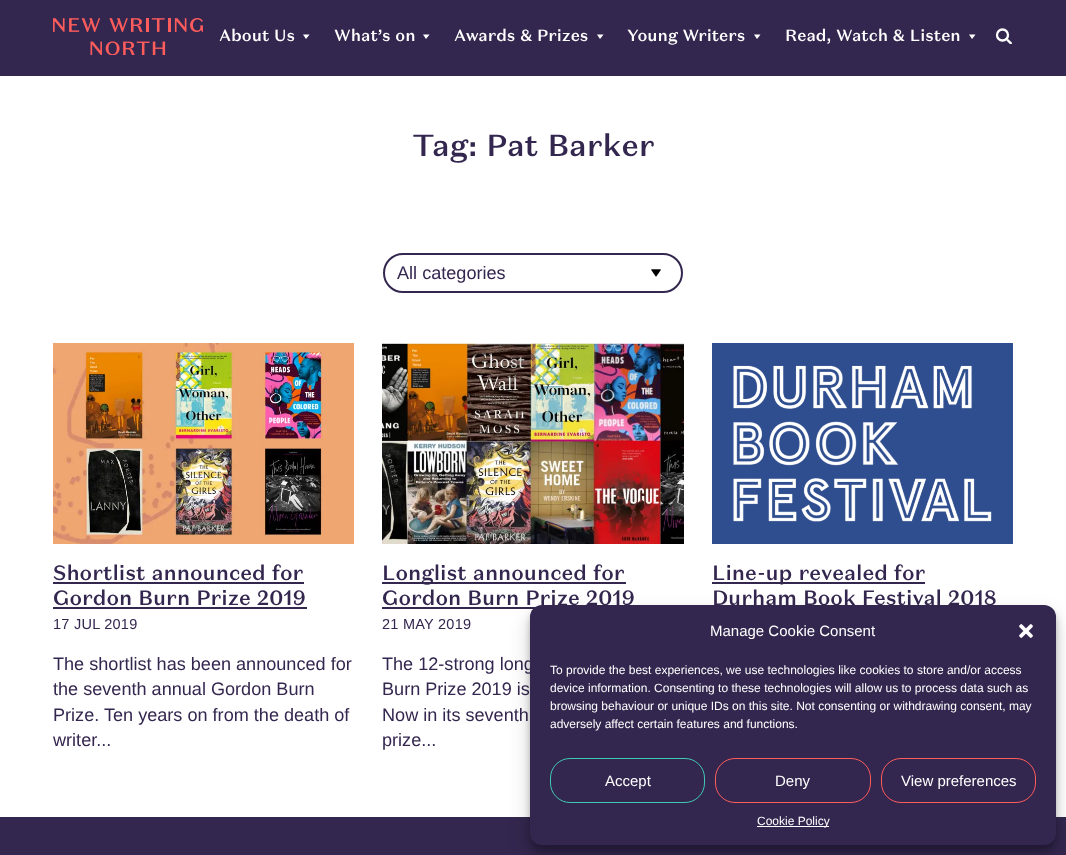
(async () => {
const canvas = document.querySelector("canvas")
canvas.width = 1066
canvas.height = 855
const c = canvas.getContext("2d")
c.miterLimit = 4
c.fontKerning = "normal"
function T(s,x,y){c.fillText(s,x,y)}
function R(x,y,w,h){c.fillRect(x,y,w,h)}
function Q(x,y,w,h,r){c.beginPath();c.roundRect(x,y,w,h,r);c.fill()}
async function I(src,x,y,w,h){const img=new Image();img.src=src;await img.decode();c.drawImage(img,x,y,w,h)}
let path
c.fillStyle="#fff"
R(0,0,1066,855)
c.fillStyle="#34274f"
R(0,0,1066,76)
await I("1.png",53,18,150,37)
c.font="500 16.25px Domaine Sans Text"
c.fillStyle="#fff"
T("About Us",219,41)
path = new Path2D("M306 39l-3-4.5h6.5l-1.5 2z")
c.fill(path)
T("What’s on",334,41)
path = new Path2D("M426 39l-3-4.5h6.5l-1.5 2z")
c.fill(path)
T("Awards & Prizes",454,41)
path = new Path2D("M600 39l-3-4.5h6.5l-1.5 2z")
c.fill(path)
T("Young Writers",627,41)
path = new Path2D("M757 39l-3-4.5h6.5l-1.5 2z")
c.fill(path)
T("Read, Watch & Listen",785,41)
path = new Path2D("M972 39l-3-4.5h6.5l-1.5 2z")
c.fill(path)
c.beginPath()
c.arc(1002.5,35,5.5,0,7)
c.strokeStyle="#fff"
c.lineWidth=2.3
c.stroke()
c.save()
c.beginPath()
c.rect(996,28,16,16)
c.clip()
path = new Path2D("M1011.5 44l-4.5-4.5")
c.stroke(path)
c.restore()
c.font="500 30.5px Domaine Sans Text"
c.fillStyle="#34274f"
T("Tag: Pat Barker",412,156)
await I("2.png",651,269,10,8)
c.beginPath()
c.roundRect(384,254,298,38,19)
c.strokeStyle="#34274f"
c.lineWidth=2
c.stroke()
c.font="18.1px Liberation Sans"
T("All categories",397,279)
await I("3.png",53,343,301,201)
c.font="500 20.75px Domaine Sans Text"
T("Shortlist announced for",53,580)
R(53,582,251,2)
T("Gordon Burn Prize 2019",53,605)
R(53,607,254,2)
c.letterSpacing="0.25px"
c.font="14.5px Liberation Sans"
T("17 JUL 2019",53,629)
c.letterSpacing="0px"
c.font="18.1px Liberation Sans"
T("The shortlist has been announced for",53,670)
T("the seventh annual Gordon Burn",53,695)
T("Prize. Ten years on from the death of",53,721)
T("writer...",53,746)
await I("4.png",382,343,302,201)
R(382,582,244,2)
c.font="500 20.75px Domaine Sans Text"
T("Longlist announced for",382,580)
T("Gordon Burn Prize 2019",382,605)
R(382,607,154,2)
c.letterSpacing="0.25px"
c.font="14.5px Liberation Sans"
T("21 MAY 2019",382,629)
c.letterSpacing="0px"
c.font="18.1px Liberation Sans"
T("The 12-strong long",382,670)
T("Burn Prize 2019 is",382,695)
T("Now in its seventh",382,721)
T("prize...",382,746)
await I("5.png",712,343,301,201)
R(712,582,213,2)
c.font="500 20.75px Domaine Sans Text"
T("Line-up revealed for",712,580)
T("Durham Book Festival 2018",712,605)
R(0,817,1066,38)
c.fillStyle="#0000003b"
c.filter="blur(3px)"
c.beginPath()
c.roundRect(530,611,526,240,12)
c.fill()
c.filter="none"
c.fillStyle="#00000030"
c.filter="blur(10px)"
c.beginPath()
c.roundRect(530,615,526,240,12)
c.fill()
c.filter="none"
c.fillStyle="#34274f"
Q(530,605,526,240,12)
c.font="15px Liberation Sans"
c.fillStyle="#fff"
T("Manage Cookie Consent",710,636)
await I("6.png",1019,624,14,14)
c.font="12px Liberation Sans"
T("To provide the best experiences, we use technologies like cookies to store and/or access",550,674)
T("device information. Consenting to these technologies will allow us to process data such as",550,692)
T("browsing behaviour or unique IDs on this site. Not consenting or withdrawing consent, may",550,710)
T("adversely affect certain features and functions.",550,728)
c.beginPath()
c.roundRect(550.5,758.5,154,44,19.5)
c.strokeStyle="#41c9b5"
c.lineWidth=1
c.stroke()
c.font="15px Liberation Sans"
T("Accept",605,786)
c.beginPath()
c.roundRect(715.5,758.5,155,44,19.5)
c.strokeStyle="#ff5c5c"
c.stroke()
T("Deny",775,786)
c.beginPath()
c.roundRect(881.5,758.5,154,44,19.5)
c.stroke()
T("View preferences",901,786)
R(757,826,72,1)
c.font="12px Liberation Sans"
T("Cookie Policy",757,825)
})()
